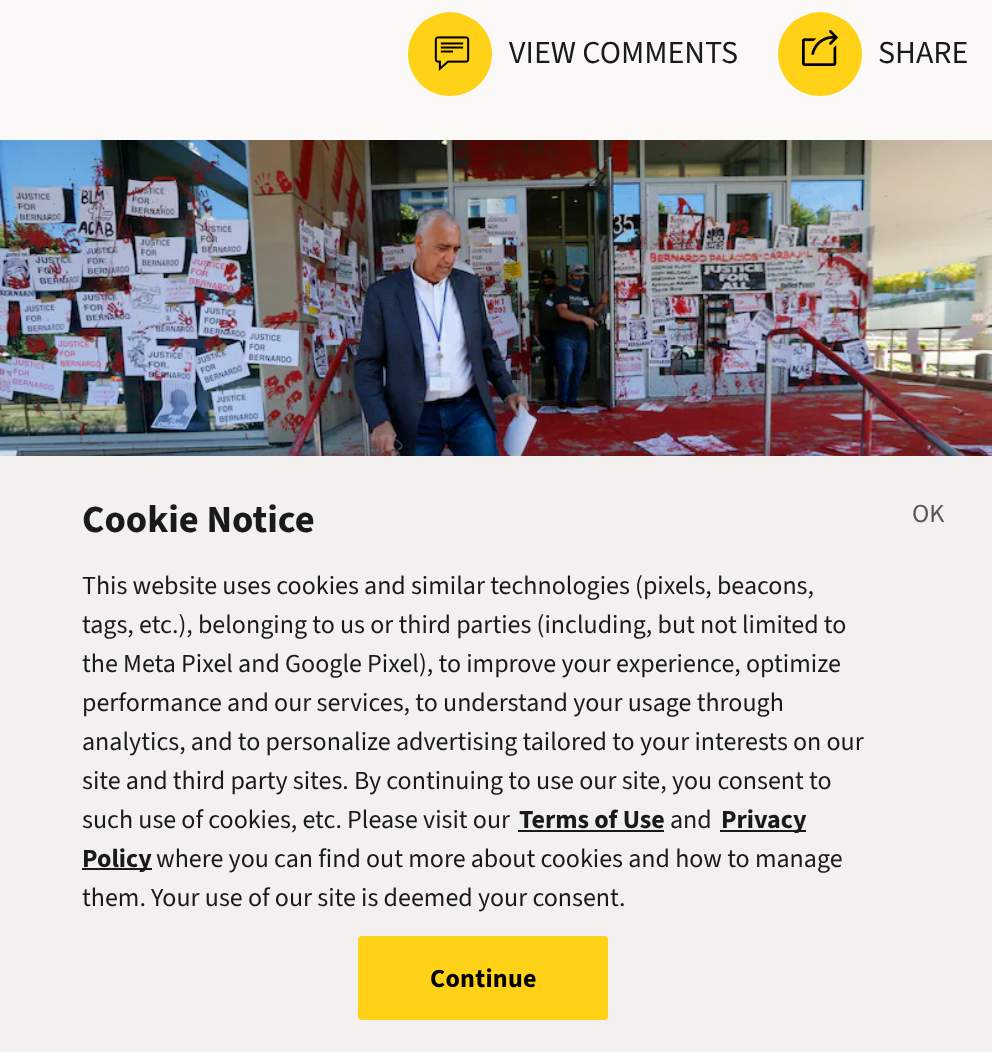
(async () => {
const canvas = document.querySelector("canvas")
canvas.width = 992
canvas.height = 1052
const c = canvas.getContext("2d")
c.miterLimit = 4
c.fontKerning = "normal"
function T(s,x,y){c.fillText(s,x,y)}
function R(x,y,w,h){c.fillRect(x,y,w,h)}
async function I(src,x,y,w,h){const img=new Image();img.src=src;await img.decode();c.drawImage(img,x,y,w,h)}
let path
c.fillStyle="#faf9f7"
R(0,0,992,1052)
c.fillStyle="#ffd217"
path = new Path2D("M450 96c40 0 57-50 26-75c-8-5-17-9-26-9c-9 0-18 4-26 9c-31 25-14 75 26 75z")
c.fill(path)
await I("1.png",434,36,36,35)
c.font="32px 'Source Sans 3'"
c.fillStyle="#1a1a19"
T("VIEW COMMENTS",509,63)
c.fillStyle="#ffd217"
path = new Path2D("M820 96c40 0 57-50 26-75c-8-5-17-9-26-9c-9 0-18 4-26 9c-31 25-14 75 26 75z")
c.fill(path)
await I("2.png",802,30,36,36)
c.fillStyle="#1a1a19"
T("SHARE",878,63)
await I("3.png",0,140,992,316)
c.fillStyle="#00000033"
c.filter="blur(18px)"
c.beginPath()
c.rect(0,456,992,596)
c.fill()
c.filter="none"
c.fillStyle="#f3f1f0"
R(0,456,992,596)
c.font="bold 38.5px 'Source Sans 3'"
c.fillStyle="#1a1a19"
T("Cookie Notice",82,532)
c.font="26px 'Source Sans 3'"
T("This website uses cookies and similar technologies (pixels, beacons,",82,594)
T("tags, etc.), belonging to us or third parties (including, but not limited to",82,633)
T("the Meta Pixel and Google Pixel), to improve your experience, optimize",82,672)
T("performance and our services, to understand your usage through",82,711)
T("analytics, and to personalize advertising tailored to your interests on our",82,750)
T("site and third party sites. By continuing to use our site, you consent to",82,789)
T("such use of cookies, etc. Please visit our",82,828)
c.font="bold 26px 'Source Sans 3'"
T("Terms of Use",519,828)
R(518,830,146,2)
c.font="26px 'Source Sans 3'"
T("and",670,828)
R(720,830,86,2)
c.font="bold 26px 'Source Sans 3'"
T("Privacy",721,828)
R(82,868,70,2)
T("Policy",82,867)
c.font="26px 'Source Sans 3'"
T("where you can find out more about cookies and how to manage",156,867)
T("them. Your use of our site is deemed your consent.",82,906)
c.fillStyle="#ffd217"
c.beginPath()
c.roundRect(359,937,248,82,3)
c.fill()
c.strokeStyle="#ffd217"
c.lineWidth=2
c.stroke()
c.letterSpacing="0.25px"
c.font="bold 26px 'Source Sans 3'"
c.fillStyle="#000"
T("Continue",430,987)
c.letterSpacing="0px"
c.font="26px 'Source Sans 3'"
c.fillStyle="#555"
T("OK",912,522)
})()
